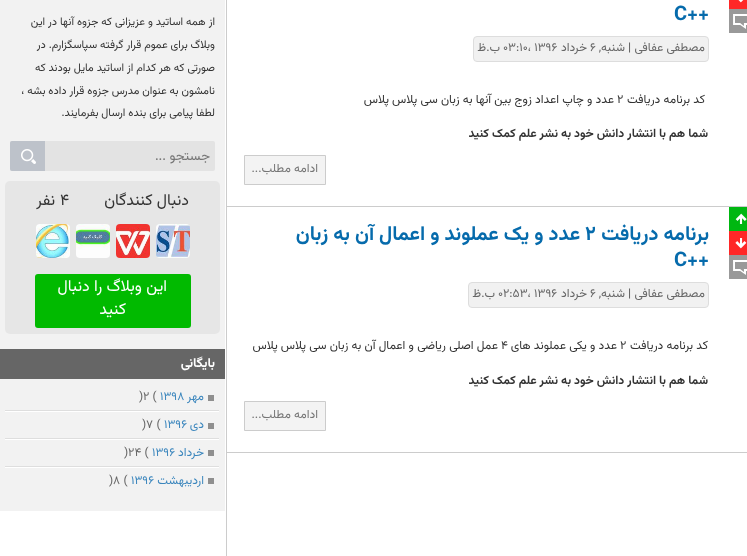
(async () => {
const canvas = document.querySelector("canvas")
canvas.width = 747
canvas.height = 556
const c = canvas.getContext("2d")
c.miterLimit = 4
c.fontKerning = "normal"
function T(s,x,y){c.fillText(s,x,y)}
function R(x,y,w,h){c.fillRect(x,y,w,h)}
function Q(x,y,w,h,r){c.beginPath();c.roundRect(x,y,w,h,r);c.fill()}
async function I(src,x,y,w,h){const img=new Image();img.src=src;await img.decode();c.drawImage(img,x,y,w,h)}
c.fillStyle="#fff"
R(0,0,747,556)
c.fillStyle="#ccc"
R(226,0,1,556)
R(227,206,520,1)
c.fillStyle="#ff2727"
R(729,0,18,9)
await I("1.png",738,0,6,3)
c.fillStyle="#999"
R(729,9,18,24)
await I("2.png",733,14,14,15)
c.font="bold 20px Vazirmatn"
c.fillStyle="#066bac"
T("C++",674,20)
c.fillStyle="#f1f1f1"
c.beginPath()
c.roundRect(473.5,36.5,235,25,3.5)
c.fill()
c.strokeStyle="#ddd"
c.stroke()
c.direction="rtl"
c.font="12px Vazirmatn"
c.fillStyle="#666"
T("مصطفی عفافی",705,51)
c.direction="ltr"
c.font="bold 12px Vazirmatn"
T("|",628,51)
c.direction="rtl"
c.font="12px Vazirmatn"
T("شنبه,",625,51)
c.direction="ltr"
T("۶",590,51)
c.direction="rtl"
T("خرداد",587,51)
c.direction="ltr"
T("۰۳:۱۰، ۱۳۹۶",503,51)
c.direction="rtl"
T("ب.ظ",500,51)
c.fillStyle="#333"
T("کد برنامه دریافت",705,103)
c.direction="ltr"
T("۲",617,103)
c.direction="rtl"
T("عدد و چاپ اعداد زوج بین آنها به زبان سی پلاس پلاس",614,103)
c.font="bold 12px Vazirmatn"
T("شما هم با انتشار دانش خود به نشر علم کمک کنید",708,137)
c.fillStyle="#f3f3f3"
c.beginPath()
c.rect(244.5,155.5,81,29)
c.fill()
c.strokeStyle="#ccc"
c.stroke()
c.font="12px Vazirmatn"
c.fillStyle="#757575"
T("ادامه مطلب...",318,172)
c.fillStyle="#ccc"
R(227,452,520,1)
c.fillStyle="#00b711"
R(729,207,18,24)
await I("3.png",735,213,12,11)
c.fillStyle="#ff2727"
R(729,231,18,24)
await I("4.png",735,238,12,11)
c.fillStyle="#999"
R(729,255,18,24)
await I("2.png",733,260,14,15)
c.font="bold 20px Vazirmatn"
c.fillStyle="#066bac"
T("برنامه دریافت",709,240)
c.direction="ltr"
T("۲",585,240)
c.direction="rtl"
T("عدد و یک عملوند و اعمال آن به زبان",580,240)
c.direction="ltr"
T("C++",674,266)
c.fillStyle="#f1f1f1"
c.beginPath()
c.roundRect(468.5,282.5,240,25,3.5)
c.fill()
c.strokeStyle="#ddd"
c.stroke()
c.direction="rtl"
c.font="12px Vazirmatn"
c.fillStyle="#666"
T("مصطفی عفافی",705,297)
c.direction="ltr"
c.font="bold 12px Vazirmatn"
T("|",628,297)
c.direction="rtl"
c.font="12px Vazirmatn"
T("شنبه,",625,297)
c.direction="ltr"
T("۶",590,297)
c.direction="rtl"
T("خرداد",587,297)
c.direction="ltr"
T("۰۲:۵۳، ۱۳۹۶",498,297)
c.direction="rtl"
T("ب.ظ",495,297)
c.fillStyle="#333"
T("کد برنامه دریافت",708,349)
c.direction="ltr"
T("۲",620,349)
c.direction="rtl"
T("عدد و یکی عملوند های",617,349)
c.direction="ltr"
T("۴",501,349)
c.direction="rtl"
T("عمل اصلی ریاضی و اعمال آن به زبان سی پلاس پلاس",498,349)
c.font="bold 12px Vazirmatn"
T("شما هم با انتشار دانش خود به نشر علم کمک کنید",708,384)
c.fillStyle="#f3f3f3"
c.beginPath()
c.rect(244.5,401.5,81,29)
c.fill()
c.strokeStyle="#ccc"
c.stroke()
c.font="12px Vazirmatn"
c.fillStyle="#757575"
T("ادامه مطلب...",318,418)
c.fillStyle="#f2f2f2"
R(0,0,225,511)
c.font="11px Vazirmatn"
c.fillStyle="#333"
T("از همه اساتید و عزیزانی که جزوه آنها در این",215,25)
T("وبلاگ برای عموم قرار گرفته سپاسگزارم. در",215,48)
T("صورتی که هر کدام از اساتید مایل بودند که",215,71)
T("نامشون به عنوان مدرس جزوه قرار داده بشه ،",215,94)
T("لطفا پیامی برای بنده ارسال بفرمایند.",215,116)
c.fillStyle="#e3e3e3"
Q(10,141,205,30,2)
c.font="13.5px Vazirmatn"
c.fillStyle="#757575"
T("جستجو ...",210,160)
c.fillStyle="#bdc2ca"
c.beginPath()
c.roundRect(10,141,35,30,[2,0,0,2])
c.fill()
await I("5.png",21,149,15,15)
c.fillStyle="#e6e6e6"
Q(5,181,215,153,5)
c.font="16px Vazirmatn"
c.fillStyle="#333"
T("دنبال کنندگان",189,205)
c.direction="ltr"
T("۴",60,205)
c.direction="rtl"
T("نفر",55,205)
await I("6.png",156,224,34,34)
await I("7.png",116,224,34,34)
await I("8.png",76,224,34,34)
await I("9.png",36,224,34,34)
c.fillStyle="#01ba00"
Q(35,274,156,54,3)
c.fillStyle="#fff"
T("این وبلاگ را دنبال",167,291)
T("کنید",126,314)
c.fillStyle="#666"
R(0,349,225,30)
c.font="bold 13px Vazirmatn"
c.fillStyle="#fff"
T("بایگانی",215,367)
await I("10.png",5,410,214,2)
c.font="12px Vazirmatn"
c.fillStyle="#3b86bd"
T("مهر",204,400)
c.fillStyle="#8f8f8f"
R(208,395,6,6)
c.direction="ltr"
c.fillStyle="#3b86bd"
T("۱۳۹۸",160,400)
c.fillStyle="#666"
T(")۲ (",139,400)
await I("10.png",5,438,214,2)
c.direction="rtl"
c.fillStyle="#3b86bd"
T("دی",204,428)
c.fillStyle="#8f8f8f"
R(208,423,6,6)
c.direction="ltr"
c.fillStyle="#3b86bd"
T("۱۳۹۶",164,428)
c.fillStyle="#666"
T(")۷ (",142,428)
await I("10.png",5,466,214,2)
c.direction="rtl"
c.fillStyle="#3b86bd"
T("خرداد",204,456)
c.fillStyle="#8f8f8f"
R(208,450,6,6)
c.direction="ltr"
c.fillStyle="#3b86bd"
T("۱۳۹۶",152,456)
c.fillStyle="#666"
T(")۲۴ (",124,456)
c.direction="rtl"
c.fillStyle="#3b86bd"
T("ارديبهشت",204,484)
c.fillStyle="#8f8f8f"
R(208,478,6,6)
c.direction="ltr"
c.fillStyle="#3b86bd"
T("۱۳۹۶",131,484)
c.fillStyle="#666"
T(")۸ (",109,484)
})()
